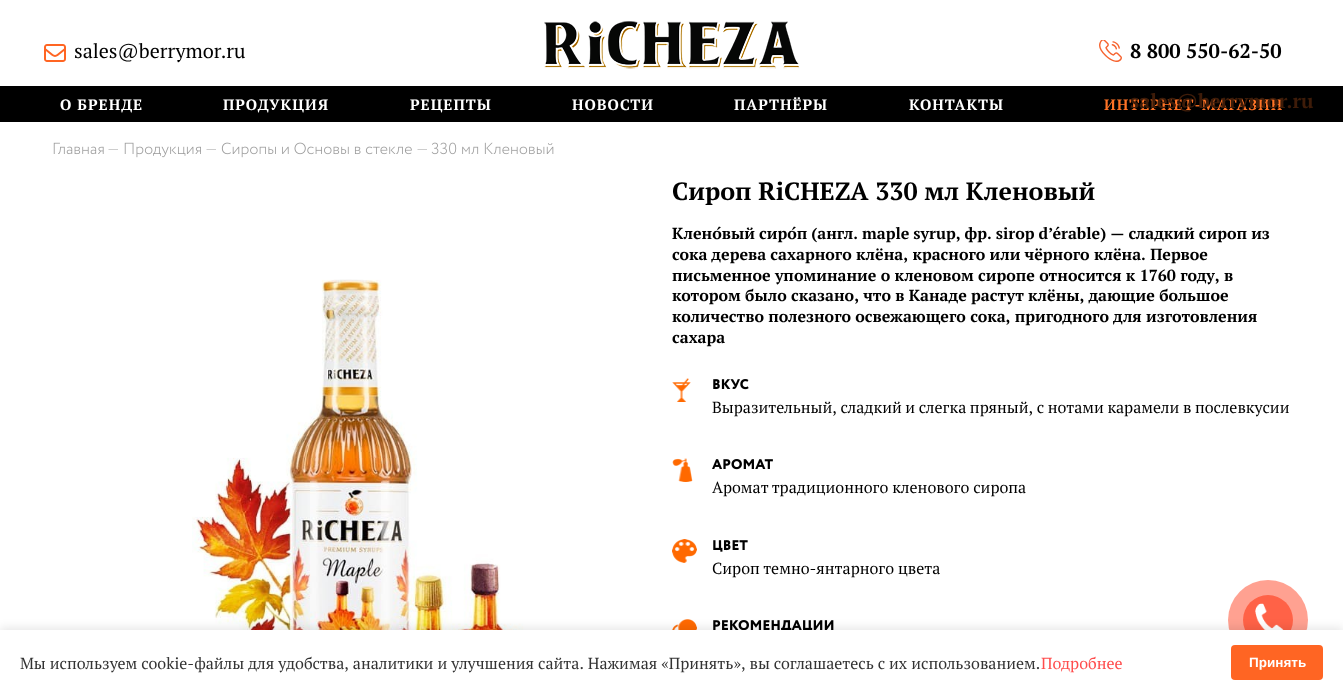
(async () => {
const canvas = document.querySelector("canvas")
canvas.width = 1343
canvas.height = 695
const c = canvas.getContext("2d")
c.miterLimit = 4
c.fontKerning = "normal"
function T(s,x,y){c.fillText(s,x,y)}
function R(x,y,w,h){c.fillRect(x,y,w,h)}
function Q(x,y,w,h,r){c.beginPath();c.roundRect(x,y,w,h,r);c.fill()}
async function I(src,x,y,w,h){const img=new Image();img.src=src;await img.decode();c.drawImage(img,x,y,w,h)}
let path
c.fillStyle="#fff"
R(0,0,1343,695)
await I("1.png",44,44,22,18)
c.font="20px PT Serif"
c.fillStyle="#000"
T("sales@berrymor.ru",74,58)
await I("2.png",544,21,256,48)
await I("3.png",1099,40,23,22)
c.font="bold 20px PT Serif"
T("8 800 550-62-50",1130,58)
R(0,86,1343,36)
c.letterSpacing="1px"
c.font="bold 15px PT Serif"
c.fillStyle="#fff"
T("О БРЕНДЕ",60,110)
T("ПРОДУКЦИЯ",223,110)
T("РЕЦЕПТЫ",410,110)
T("НОВОСТИ",572,110)
T("ПАРТНЁРЫ",734,110)
T("КОНТАКТЫ",909,110)
c.fillStyle="#ff7326"
T("ИНТЕРНЕТ-МАГАЗИН",1104,110)
c.letterSpacing="0px"
c.font="bold 20px PT Serif"
c.fillStyle="#3e1c09"
T("sales@berrymor.ru",1130,108)
await I("4.png",53,142,51,13)
c.fillStyle="#9b9b9b"
path = new Path2D("M108.5 150h9.5v-.5h-9.5z")
c.fill(path)
await I("5.png",124,142,77,16)
path = new Path2D("M206.5 150h9.5v-.5h-9.5z")
c.fill(path)
await I("6.png",221,142,191,16)
path = new Path2D("M417.5 150h9.5v-.5h-9.5z")
c.fill(path)
await I("7.png",431,142,123,13)
await I("8.png",192,279,355,351)
c.font="bold 25px PT Serif"
c.fillStyle="#000"
T("Сироп RiCHEZA 330 мл Кленовый",672,200)
c.wordSpacing="-0.25px"
c.font="bold 16px PT Serif"
T("Клено́вый сиро́п (англ. maple syrup, фр. sirop d’érable) — сладкий сироп из",672,239)
c.wordSpacing="0px"
T("сока дерева сахарного клёна, красного или чёрного клёна. Первое",672,260)
T("письменное упоминание о кленовом сиропе относится к 1760 году, в",672,281)
T("котором было сказано, что в Канаде растут клёны, дающие большое",672,301)
T("количество полезного освежающего сока, пригодного для изготовления",672,322)
T("сахара",672,343)
await I("9.png",672,378,19,24)
await I("10.png",713,379,36,11)
c.wordSpacing="-0.25px"
c.font="16px PT Serif"
T("Выразительный, сладкий и слегка пряный, с нотами карамели в послевкусии",712,413)
await I("11.png",672,458,21,24)
await I("12.png",712,459,61,11)
c.wordSpacing="0px"
T("Аромат традиционного кленового сиропа",712,493)
await I("13.png",672,539,25,24)
await I("14.png",713,540,35,12)
T("Сироп темно-янтарного цвета",712,574)
await I("15.png",672,619,25,11)
await I("16.png",713,620,121,10)
c.fillStyle="#ff6247"
c.beginPath()
c.arc(1268,620,25,0,7)
c.fill()
c.fillStyle="#ff624799"
c.beginPath()
c.arc(1268,620,40,0,7)
c.fill()
await I("17.png",1255,603,29,27)
c.fillStyle="#0000001a"
c.filter="blur(5px)"
c.beginPath()
c.rect(0,628,1343,65)
c.fill()
c.filter="none"
c.fillStyle="#fff"
R(0,630,1343,65)
c.wordSpacing="0.1px"
c.fillStyle="#333"
T("Мы используем cookie-файлы для удобства, аналитики и улучшения сайта. Нажимая «Принять», вы соглашаетесь с их использованием.",20,669)
c.wordSpacing="0px"
c.fillStyle="#ff4d4d"
T("Подробнее",1041,669)
c.fillStyle="#ff6523"
Q(1231,645,92,35,4)
c.font="bold 13.5px Liberation Sans"
c.fillStyle="#fff"
T("Принять",1249,667)
})()
